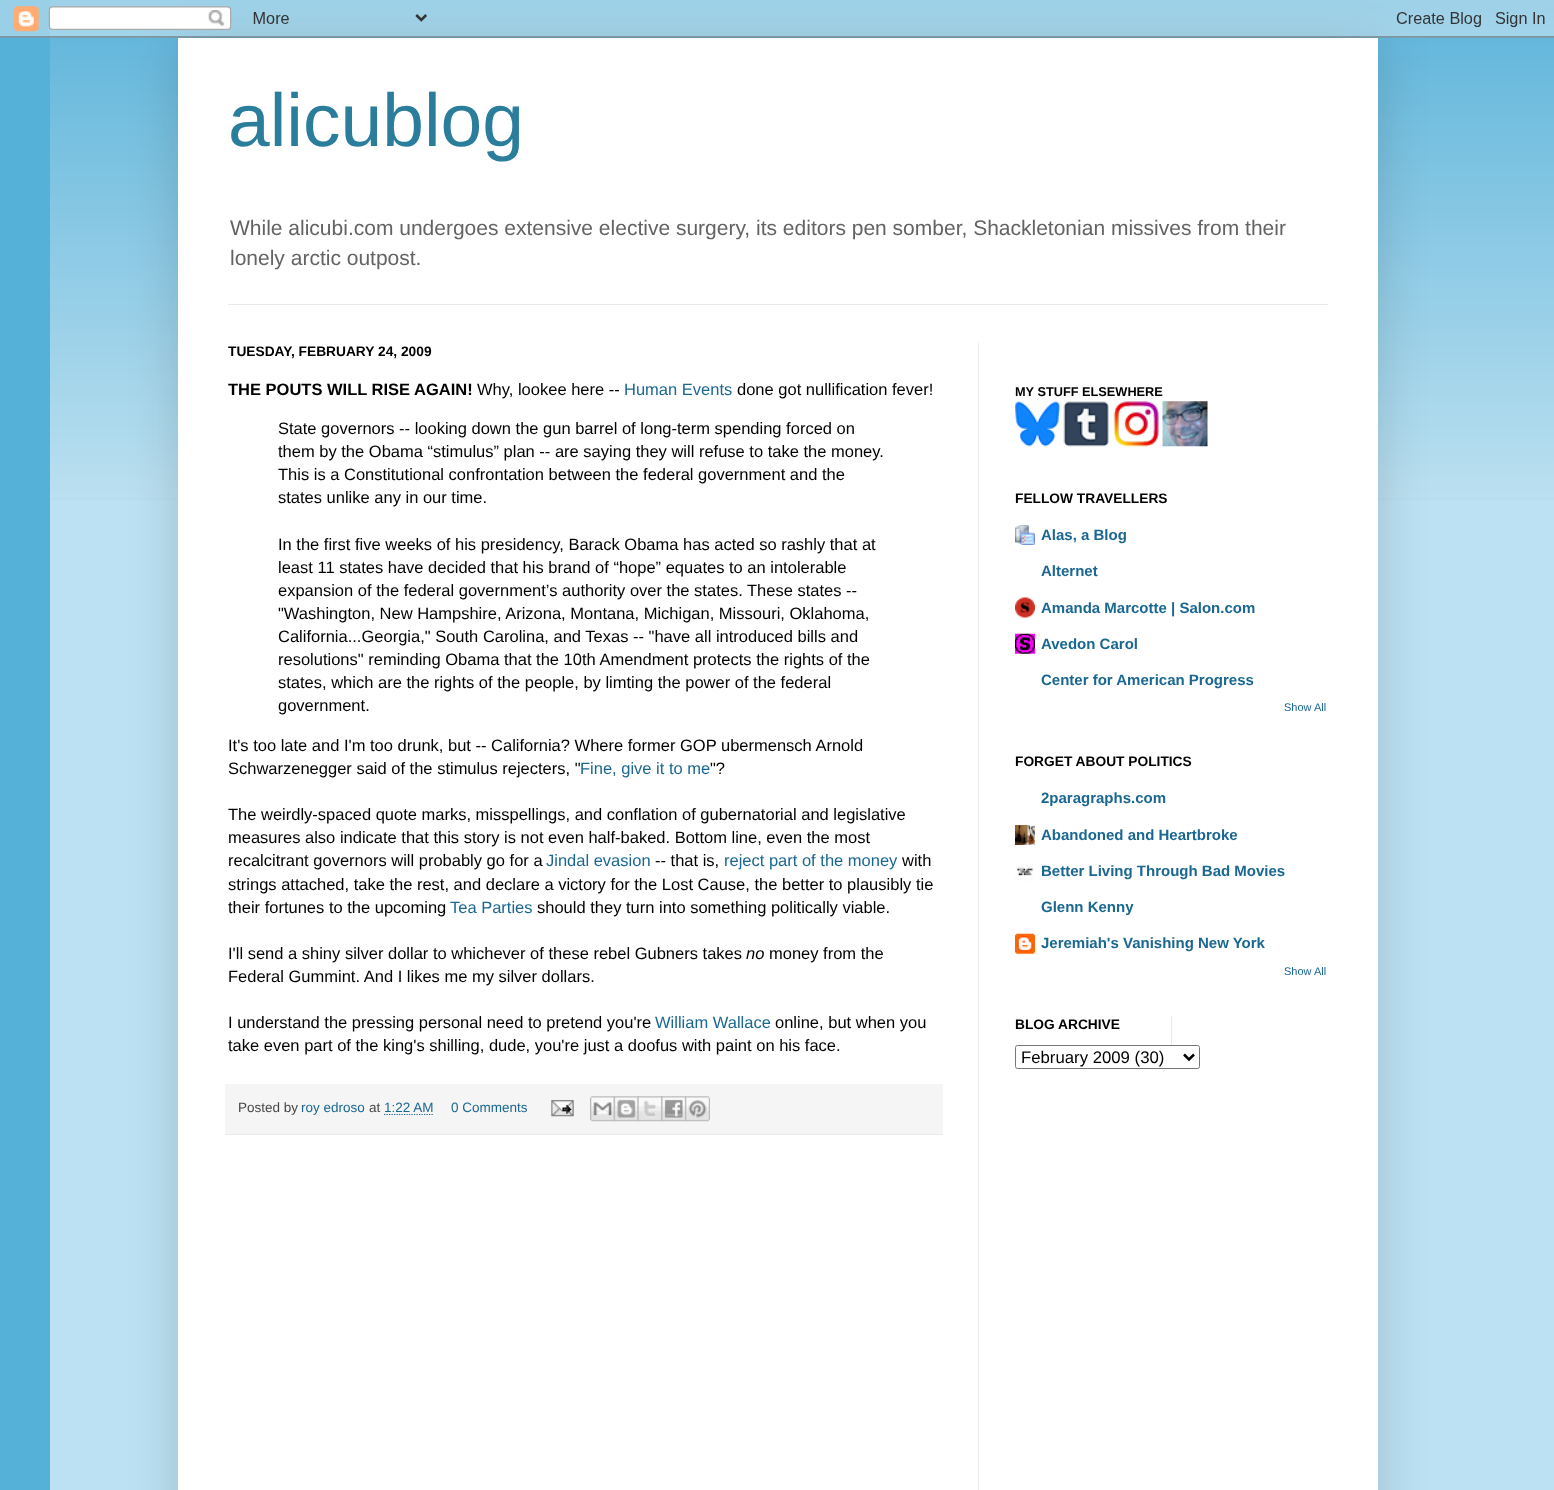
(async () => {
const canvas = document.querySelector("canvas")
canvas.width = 1554
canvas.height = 1490
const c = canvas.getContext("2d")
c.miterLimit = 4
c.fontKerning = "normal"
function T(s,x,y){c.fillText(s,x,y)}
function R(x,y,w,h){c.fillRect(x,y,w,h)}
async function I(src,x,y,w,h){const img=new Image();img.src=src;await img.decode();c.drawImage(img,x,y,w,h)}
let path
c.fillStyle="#56b1d9"
R(0,0,1554,1490)
await I("2.png",50,0,1504,500)
c.fillStyle="#bbe1f2"
R(50,500,1504,990)
c.fillStyle="#00000026"
c.filter="blur(25px)"
c.beginPath()
c.rect(178,38,1200,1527)
c.fill()
c.filter="none"
await I("1.png",0,0,1554,38)
c.fillStyle="#fff"
R(178,38,1200,1452)
c.font="75px Liberation Sans"
c.fillStyle="#2a7d9b"
T("alicublog",228,146)
c.font="21px Liberation Sans"
c.fillStyle="#636363"
T("While alicubi.com undergoes extensive elective surgery, its editors pen somber, Shackletonian missives from their",230,235)
T("lonely arctic outpost.",230,265)
c.fillStyle="#e9e9e9"
R(228,304,1100,1)
R(978,343,1,1147)
c.font="bold 13.75px Liberation Sans"
c.fillStyle="#000"
T("TUESDAY, FEBRUARY 24, 2009",228,356)
c.font="bold 16.5px Liberation Sans"
T("THE POUTS WILL RISE AGAIN!",228,395)
c.font="16.5px Liberation Sans"
T("Why, lookee here --",477,395)
c.fillStyle="#1a6791"
T("Human Events",624,395)
c.fillStyle="#000"
T("done got nullification fever!",737,395)
T("State governors -- looking down the gun barrel of long-term spending forced on",278,434)
T("them by the Obama “stimulus” plan -- are saying they will refuse to take the money.",278,457)
T("This is a Constitutional confrontation between the federal government and the",278,480)
T("states unlike any in our time.",278,503)
T("In the first five weeks of his presidency, Barack Obama has acted so rashly that at",278,550)
T("least 11 states have decided that his brand of “hope” equates to an intolerable",278,573)
T("expansion of the federal government’s authority over the states. These states --",278,596)
T("\"Washington, New Hampshire, Arizona, Montana, Michigan, Missouri, Oklahoma,",278,619)
T("California...Georgia,\" South Carolina, and Texas -- \"have all introduced bills and",278,642)
T("resolutions\" reminding Obama that the 10th Amendment protects the rights of the",278,665)
T("states, which are the rights of the people, by limting the power of the federal",278,688)
T("government.",278,711)
T("It's too late and I'm too drunk, but -- California? Where former GOP ubermensch Arnold",228,751)
T("Schwarzenegger said of the stimulus rejecters, \"",228,774)
c.fillStyle="#1a6791"
T("Fine, give it to me",580,774)
c.fillStyle="#000"
T("\"?",710,774)
T("The weirdly-spaced quote marks, misspellings, and conflation of gubernatorial and legislative",228,820)
T("measures also indicate that this story is not even half-baked. Bottom line, even the most",228,843)
T("recalcitrant governors will probably go for a",228,866)
c.fillStyle="#1a6791"
T("Jindal evasion",546,866)
c.fillStyle="#000"
T("-- that is,",655,866)
c.fillStyle="#1a6791"
T("reject part of the money",724,866)
c.fillStyle="#000"
T("with",902,866)
T("strings attached, take the rest, and declare a victory for the Lost Cause, the better to plausibly tie",228,890)
T("their fortunes to the upcoming",228,913)
c.fillStyle="#1a6791"
T("Tea Parties",450,913)
c.fillStyle="#000"
T("should they turn into something politically viable.",537,913)
T("I'll send a shiny silver dollar to whichever of these rebel Gubners takes",228,959)
c.font="italic 16.5px Liberation Sans"
T("no",746,959)
c.font="16.5px Liberation Sans"
T("money from the",769,959)
T("Federal Gummint. And I likes me my silver dollars.",228,982)
T("I understand the pressing personal need to pretend you're",228,1028)
c.fillStyle="#1a6791"
T("William Wallace",655,1028)
c.fillStyle="#000"
T("online, but when you",775,1028)
T("take even part of the king's shilling, dude, you're just a doofus with paint on his face.",228,1051)
c.fillStyle="#f5f5f5"
R(225,1084,718,50)
c.fillStyle="#e9e9e9"
R(225,1134,718,1)
c.font="13.5px Liberation Sans"
c.fillStyle="#464646"
T("Posted by",238,1112)
c.fillStyle="#1a6791"
T("roy edroso",301,1112)
c.fillStyle="#464646"
T("at",369,1112)
c.fillStyle="#1a6791"
T("1:22 AM",384,1112)
path = new Path2D("M384 1114.5h49.5")
c.strokeStyle="#1a6791"
c.lineWidth=1.2
c.setLineDash([1.25,1.25])
c.stroke(path)
T("0 Comments",451,1112)
await I("3.png",551,1100,23,17)
await I("4.png",590,1096,25,26)
await I("5.png",613,1096,26,26)
await I("6.png",637,1096,26,26)
await I("7.png",661,1096,26,26)
await I("8.png",685,1096,25,26)
c.font="bold 12.75px Liberation Sans"
c.fillStyle="#000"
T("MY STUFF ELSEWHERE",1015,396)
await I("9.png",1015,401,45,46)
await I("10.png",1063,401,46,46)
await I("11.png",1113,401,46,46)
await I("12.png",1162,401,46,46)
c.font="bold 13.75px Liberation Sans"
T("FELLOW TRAVELLERS",1015,503)
await I("13.png",1015,525,20,20)
c.font="bold 15px Liberation Sans"
c.fillStyle="#1a6791"
T("Alas, a Blog",1041,540)
T("Alternet",1041,576)
await I("14.png",1015,597,20,21)
T("Amanda Marcotte | Salon.com",1041,613)
await I("15.png",1015,633,20,21)
T("Avedon Carol",1041,649)
T("Center for American Progress",1041,685)
c.font="11px Liberation Sans"
T("Show All",1284,711)
c.font="bold 13.75px Liberation Sans"
c.fillStyle="#000"
T("FORGET ABOUT POLITICS",1015,766)
c.font="bold 15px Liberation Sans"
c.fillStyle="#1a6791"
T("2paragraphs.com",1041,803)
await I("16.png",1015,825,20,20)
T("Abandoned and Heartbroke",1041,840)
await I("17.png",1015,864,19,17)
T("Better Living Through Bad Movies",1041,876)
T("Glenn Kenny",1041,912)
await I("18.png",1015,933,20,21)
T("Jeremiah's Vanishing New York",1041,948)
c.font="11px Liberation Sans"
T("Show All",1284,975)
c.font="bold 13.75px Liberation Sans"
c.fillStyle="#000"
T("BLOG ARCHIVE",1015,1029)
c.beginPath()
c.roundRect(1015.5,1045.5,184,23,2)
c.strokeStyle="#767676"
c.lineWidth=1
c.setLineDash([])
c.stroke()
path = new Path2D("M1184 1054.5l5 5l5-5")
c.strokeStyle="#000"
c.lineWidth=2.5
c.stroke(path)
c.font="16.75px Liberation Sans"
T("February 2009 (30)",1021,1063)
c.fillStyle="#e9e9e9"
R(1171,1016,1,29)
})()
